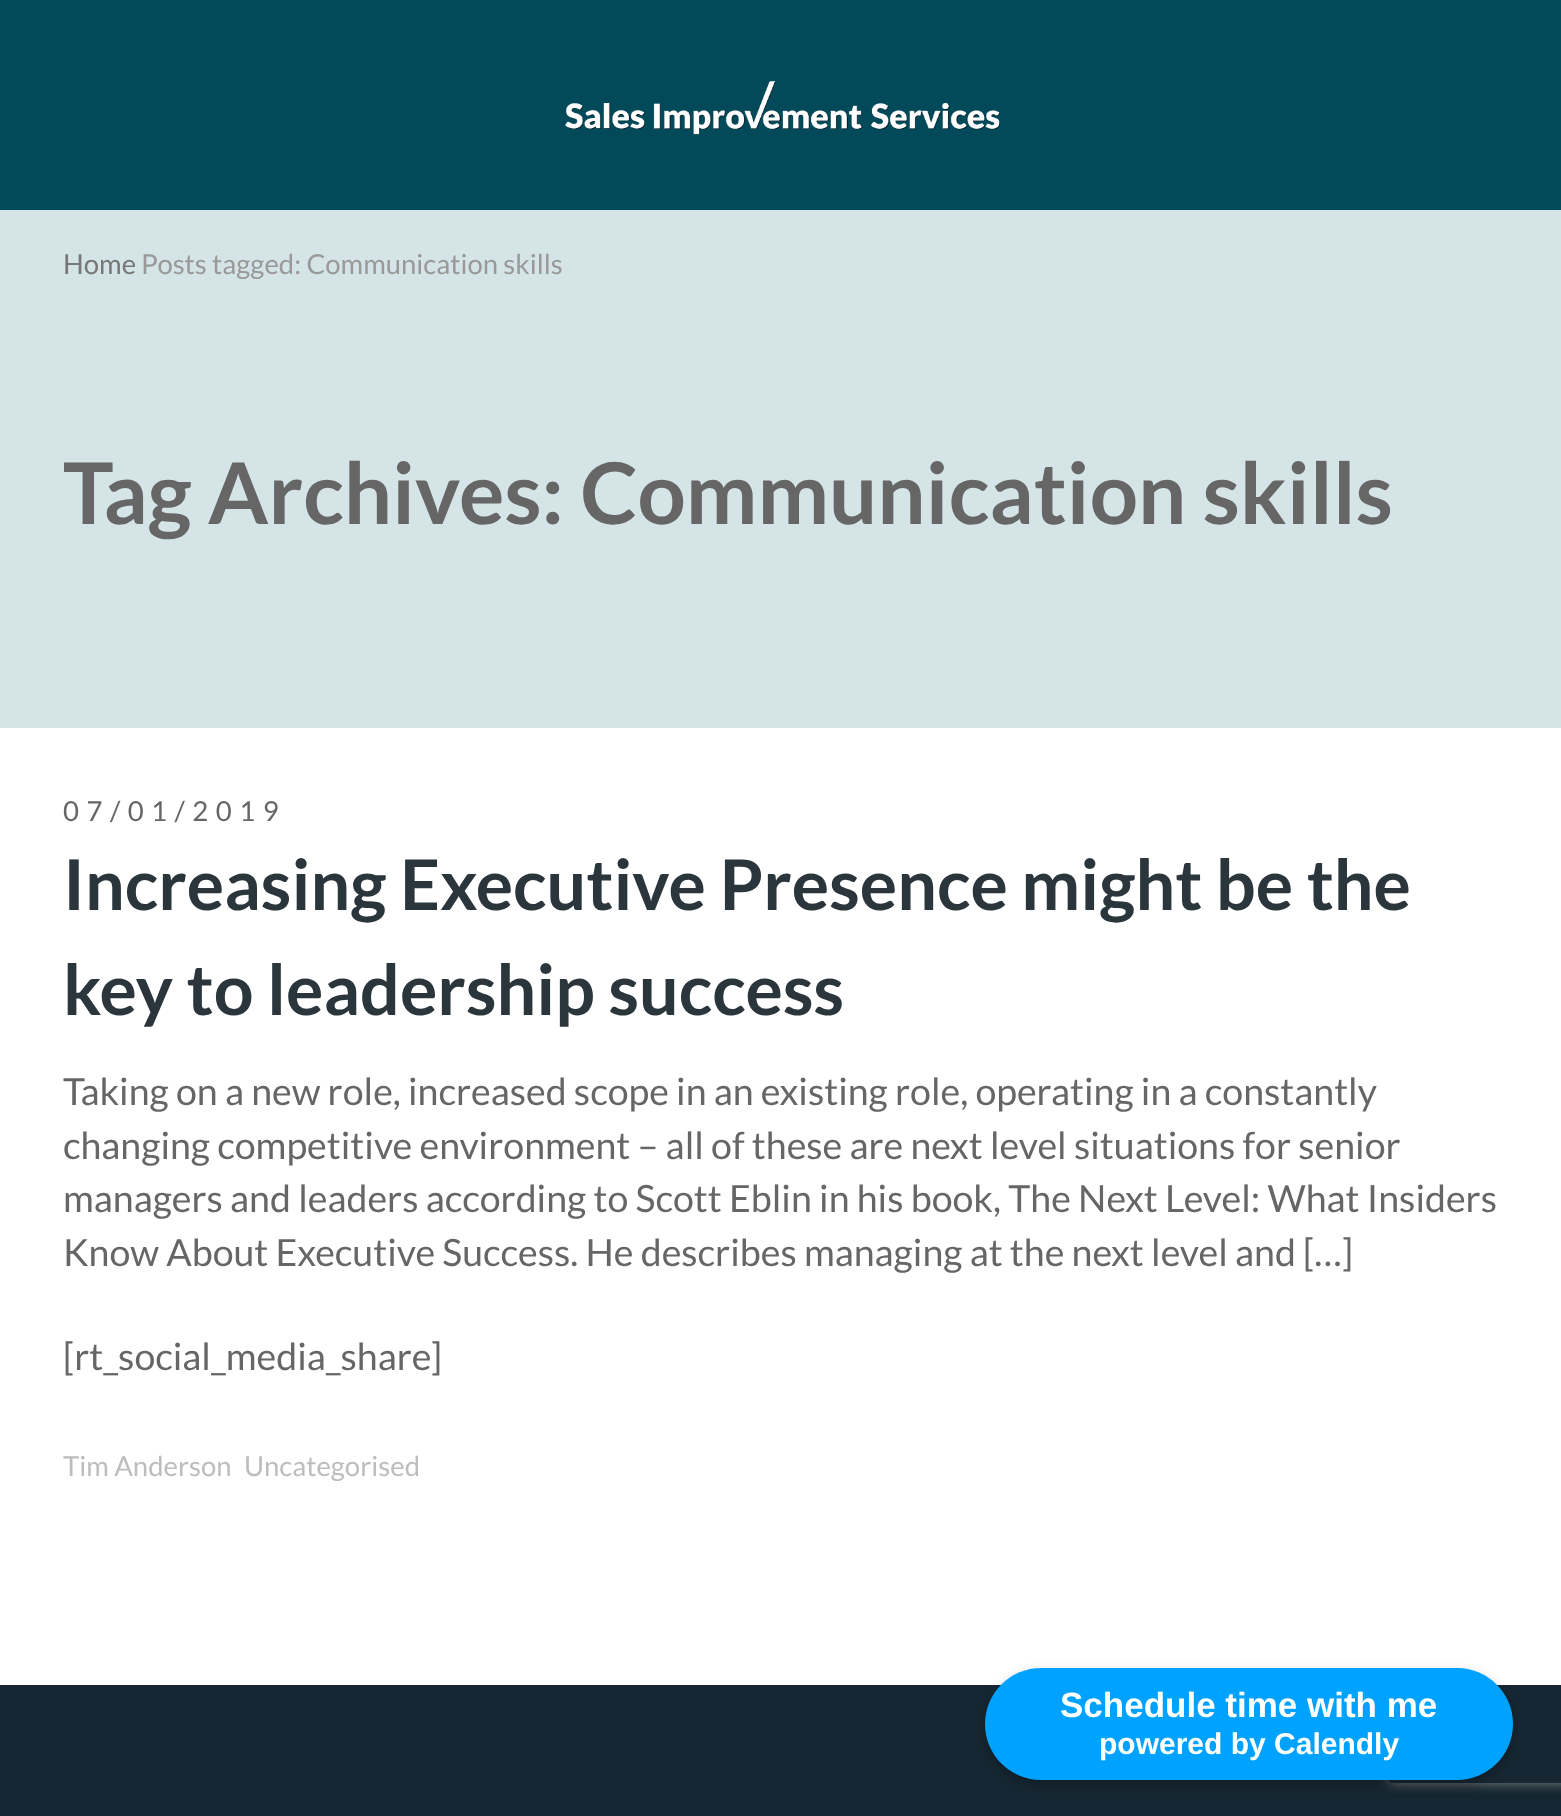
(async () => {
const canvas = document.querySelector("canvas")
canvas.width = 1561
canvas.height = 1816
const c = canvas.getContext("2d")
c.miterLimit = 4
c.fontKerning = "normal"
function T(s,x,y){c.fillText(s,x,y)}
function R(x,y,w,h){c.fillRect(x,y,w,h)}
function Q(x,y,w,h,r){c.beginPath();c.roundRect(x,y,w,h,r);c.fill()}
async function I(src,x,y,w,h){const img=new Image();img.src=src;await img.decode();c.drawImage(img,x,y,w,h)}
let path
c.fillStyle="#d5e4e7"
R(0,0,1561,1816)
c.fillStyle="#024959"
R(0,0,1561,210)
await I("1.png",565,81,435,54)
c.font="27.5px Lato"
c.fillStyle="#777"
T("Home",63,274)
c.fillStyle="#999"
T("Posts tagged: Communication skills",141,274)
c.font="bold 85px Lato"
c.fillStyle="#666"
T("Tag Archives: Communication skills",63,524)
c.fillStyle="#162733"
R(0,1685,1561,131)
c.save()
path = new Path2D("M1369 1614h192v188h-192zm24 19h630c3 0 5 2 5 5v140c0 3-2 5-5 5h-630c-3 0-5-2-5-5v-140c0-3 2-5 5-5z")
c.clip(path,"evenodd")
c.fillStyle="#808080"
c.filter="blur(6px)"
c.beginPath()
c.roundRect(1388,1633,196,150,5)
c.fill()
c.filter="none"
c.restore()
c.fillStyle="#fff"
R(0,728,1561,957)
c.letterSpacing="7.5px"
c.font="27.5px Lato"
c.fillStyle="#666"
T("07/01/2019",63,821)
c.letterSpacing="0px"
c.font="bold 70px Lato"
c.fillStyle="#2a363c"
T("Increasing Executive Presence might be the",63,910)
T("key to leadership success",63,1015)
c.font="37.5px Lato"
c.fillStyle="#666"
T("Taking on a new role, increased scope in an existing role, operating in a constantly",63,1105)
T("changing competitive environment – all of these are next level situations for senior",63,1159)
T("managers and leaders according to Scott Eblin in his book, The Next Level: What Insiders",63,1212)
T("Know About Executive Success. He describes managing at the next level and […]",63,1266)
T("[rt_social_media_share]",63,1370)
c.font="27.5px Lato"
c.fillStyle="#bdbdbd"
T("Tim Anderson",63,1476)
T("Uncategorised",244,1476)
c.fillStyle="#00000040"
c.filter="blur(6px)"
c.beginPath()
c.roundRect(985,1673,528,112,56)
c.fill()
c.filter="none"
c.fillStyle="#00a2ff"
Q(985,1668,528,112,56)
c.font="bold 35px Liberation Sans"
c.fillStyle="#fff"
T("Schedule time with me",1060,1717)
c.font="bold 30px Liberation Sans"
T("powered by Calendly",1099,1754)
})()
